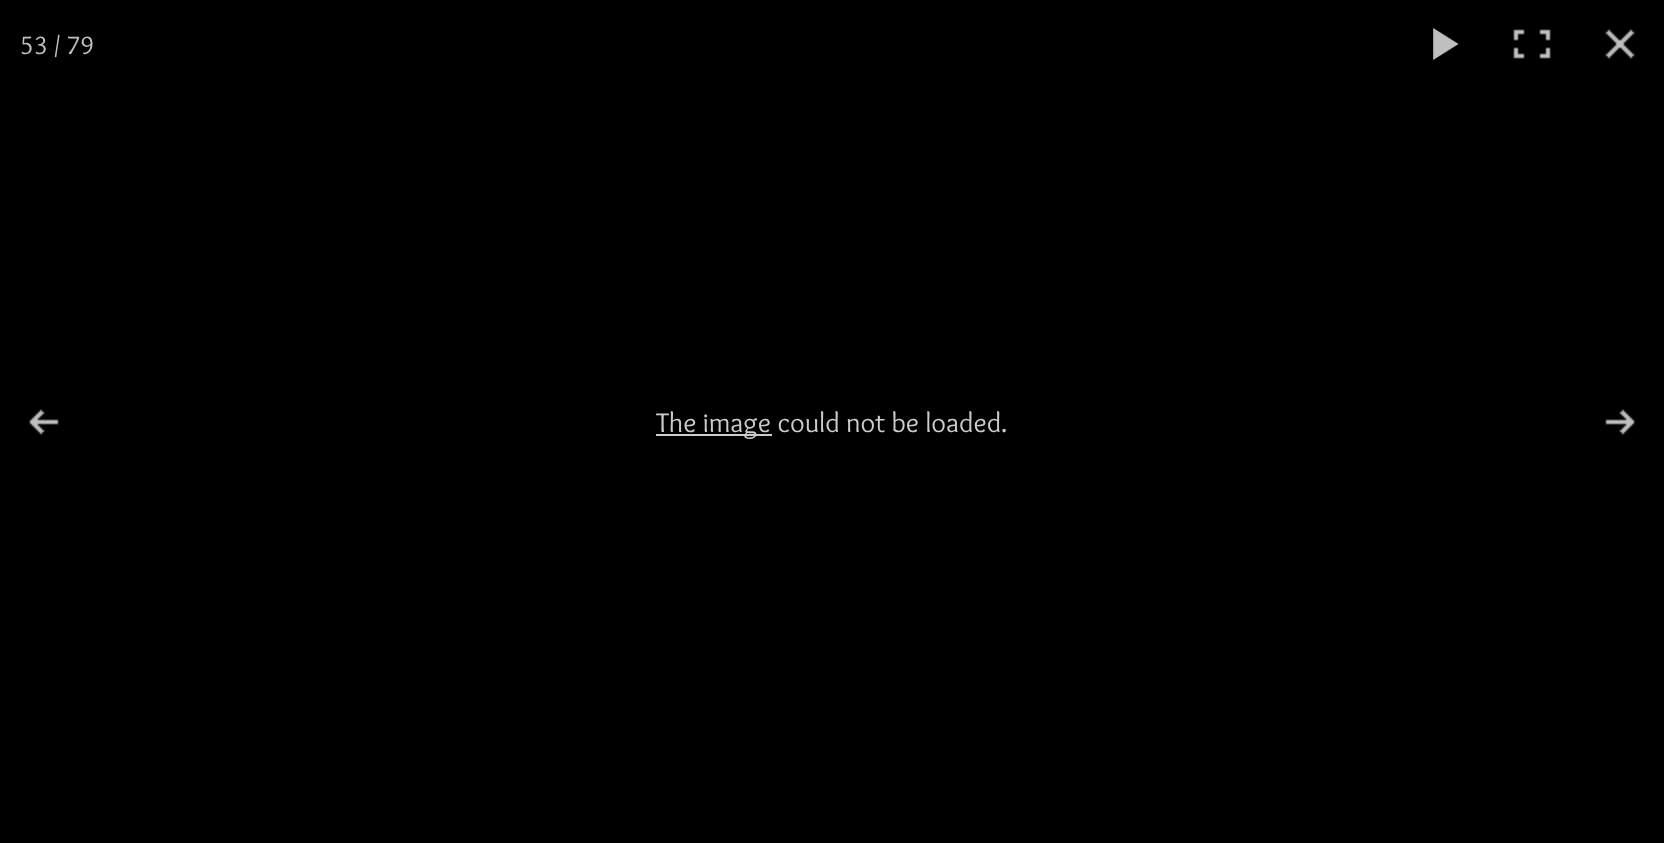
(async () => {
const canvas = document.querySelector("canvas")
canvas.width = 1664
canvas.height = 843
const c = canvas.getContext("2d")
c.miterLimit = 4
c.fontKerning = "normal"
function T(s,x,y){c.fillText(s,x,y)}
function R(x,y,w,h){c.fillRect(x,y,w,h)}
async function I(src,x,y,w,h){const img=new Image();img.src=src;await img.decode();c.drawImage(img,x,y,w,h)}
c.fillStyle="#000"
R(0,0,1664,843)
c.font="26px Overlock"
c.fillStyle="#bfbfbf"
T("53 / 79",20,54)
await I("1.png",1433,28,26,32)
await I("2.png",1513,29,38,30)
await I("3.png",1605,29,30,30)
await I("4.png",29,409,30,26)
await I("5.png",1605,409,30,26)
c.fillStyle="#ccc"
R(656,434,116,2)
c.font="28px Overlock"
T("The image could not be loaded.",656,432)
})()
